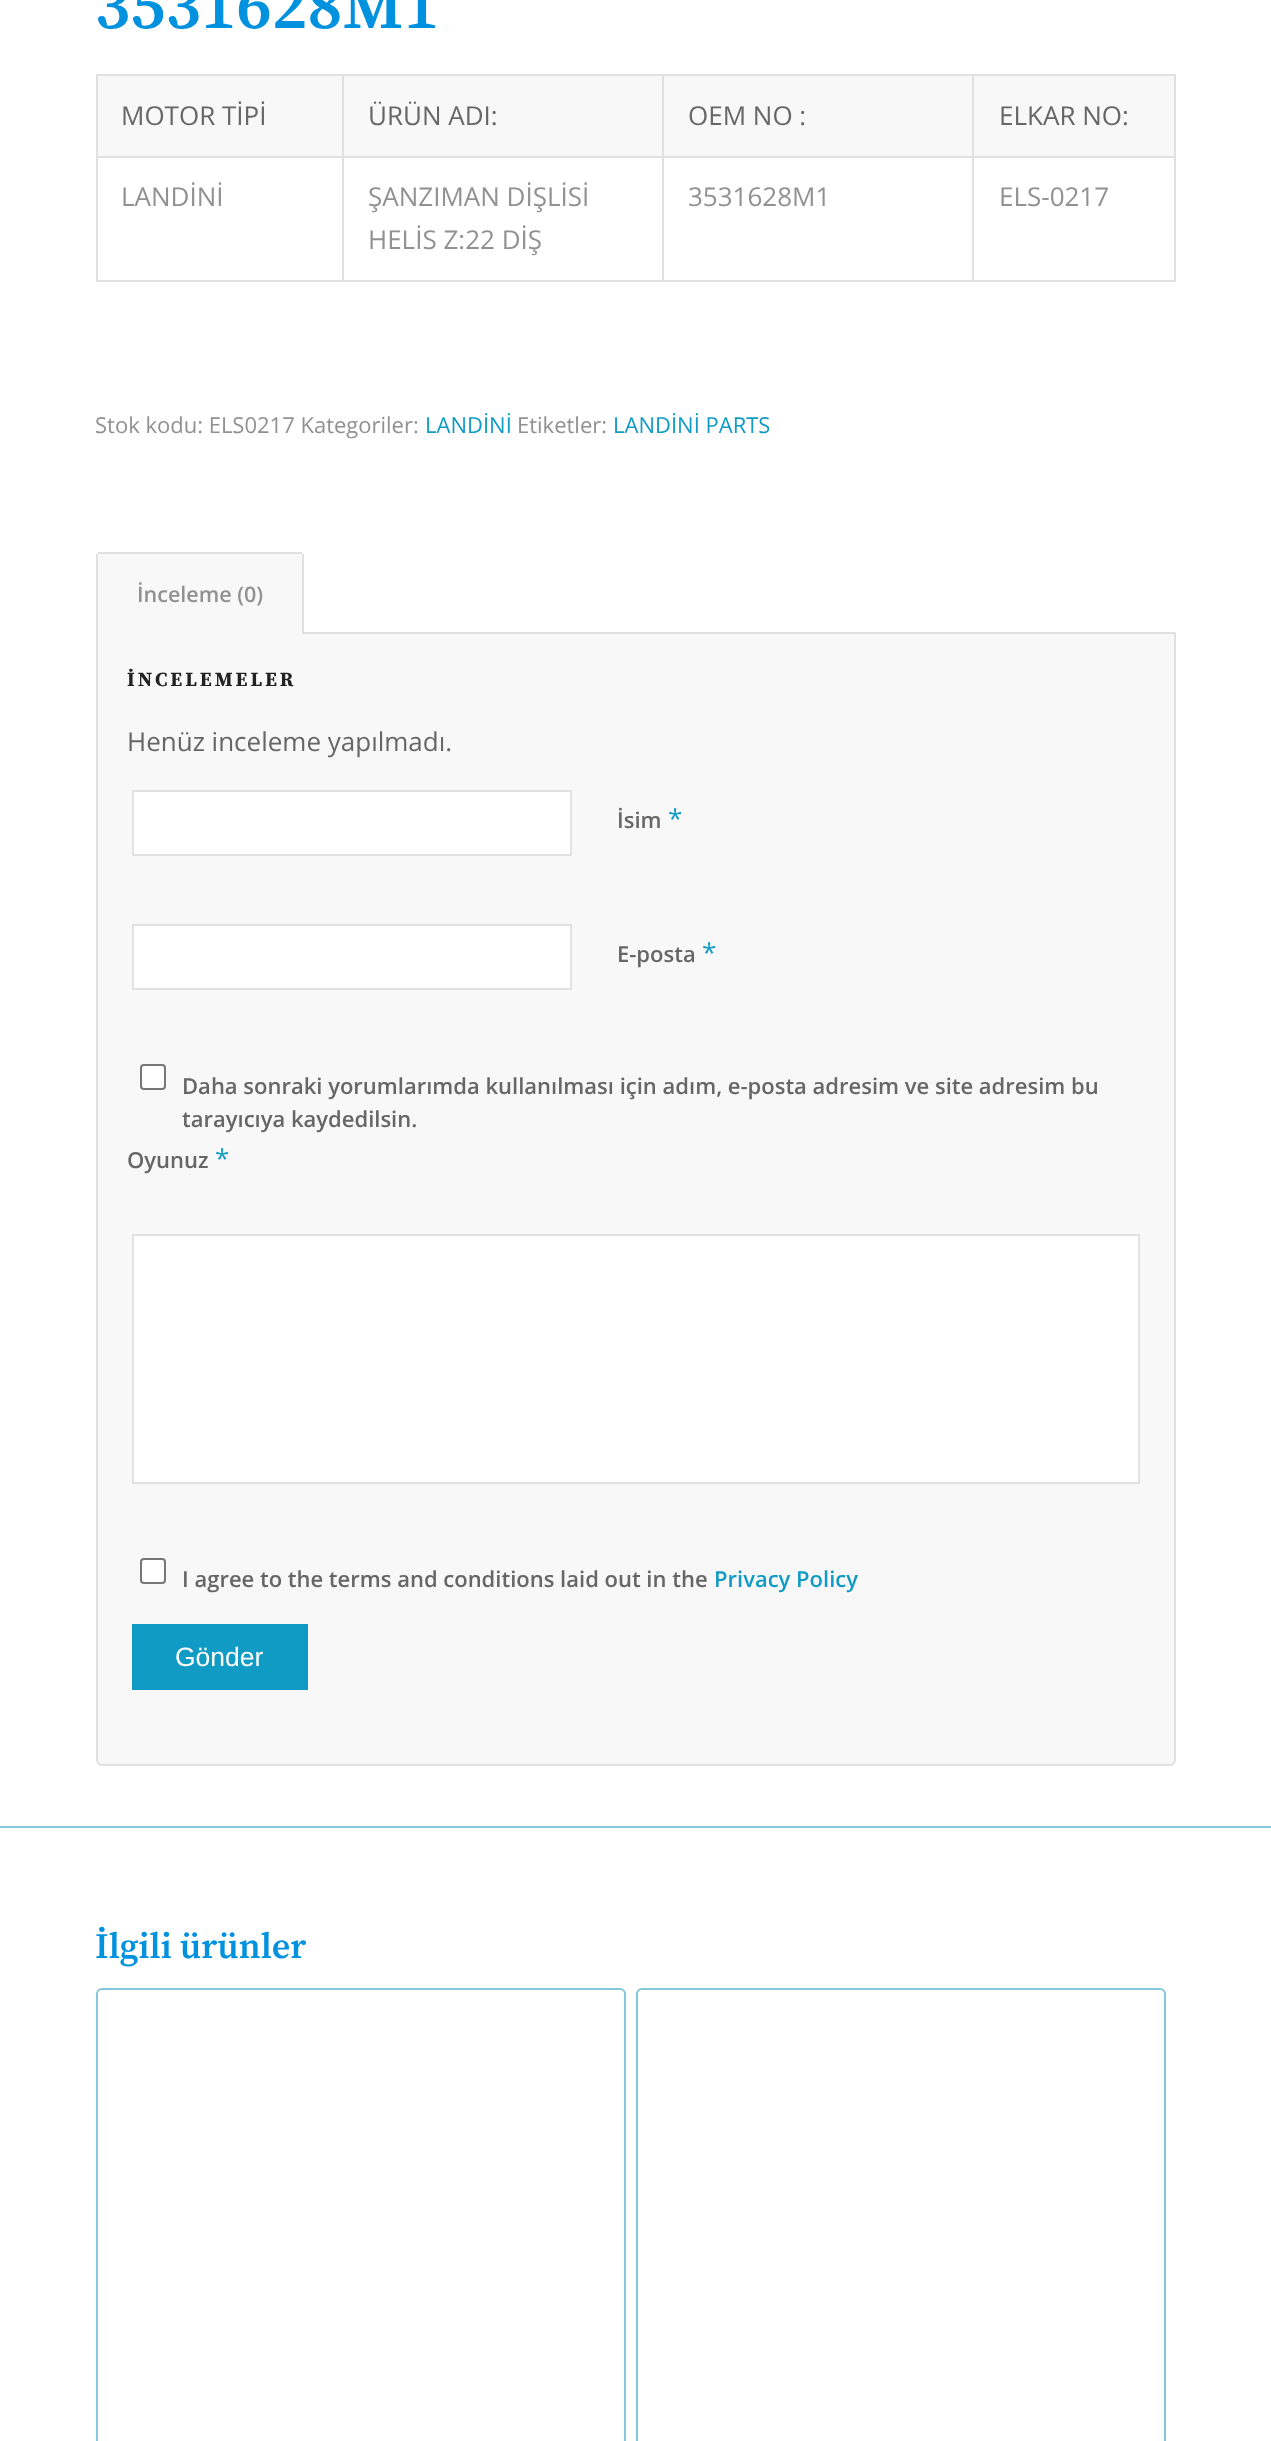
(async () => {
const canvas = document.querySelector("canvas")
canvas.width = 1271
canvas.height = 2441
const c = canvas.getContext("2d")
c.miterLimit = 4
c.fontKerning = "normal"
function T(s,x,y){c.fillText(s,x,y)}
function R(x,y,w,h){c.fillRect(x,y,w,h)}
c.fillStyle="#fff"
R(0,0,1271,2441)
c.font="600 68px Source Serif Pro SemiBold"
c.fillStyle="#0091df"
T("3531628M1",95,28)
c.fillStyle="#f8f8f8"
R(98,76,1076,80)
c.fillStyle="#e1e1e1"
R(96,74,1080,2)
R(1174,156,2,126)
R(1174,74,2,84)
R(972,280,204,2)
R(972,156,2,126)
R(972,156,204,2)
R(972,74,2,84)
R(662,280,312,2)
R(662,156,2,126)
R(662,156,312,2)
R(662,74,2,84)
R(342,280,322,2)
R(342,156,2,126)
R(342,156,322,2)
R(342,74,2,84)
R(96,280,248,2)
R(96,156,2,126)
R(96,156,248,2)
R(96,74,2,84)
c.font="26px Open Sans"
c.fillStyle="#666"
T("MOTOR TİPİ",121,125)
T("ÜRÜN ADI:",368,125)
T("OEM NO :",688,125)
T("ELKAR NO:",999,125)
c.fillStyle="#919191"
T("LANDİNİ",121,206)
T("ŞANZIMAN DİŞLİSİ",368,206)
T("HELİS Z:22 DİŞ",368,249)
T("3531628M1",688,206)
T("ELS-0217",999,206)
c.font="22px Open Sans"
T("Stok kodu: ELS0217 Kategoriler:",95,433)
c.fillStyle="#109bc5"
T("LANDİNİ",425,433)
c.fillStyle="#919191"
T("Etiketler:",517,433)
c.fillStyle="#109bc5"
T("LANDİNİ PARTS",613,433)
c.fillStyle="#f8f8f8"
c.beginPath()
c.roundRect(97,633,1078,1132,[0,0,5,5])
c.fill()
c.strokeStyle="#e1e1e1"
c.lineWidth=2
c.stroke()
R(96,552,208,82)
c.fillStyle="#e1e1e1"
R(98,552,204,2)
R(302,554,2,80)
R(96,554,2,80)
c.font="600 21.5px Open Sans"
c.fillStyle="#919191"
T("İnceleme (0)",137,602)
c.letterSpacing="3px"
c.font="bold 20px Source Serif Pro"
c.fillStyle="#222"
T("İNCELEMELER",127,686)
c.letterSpacing="0px"
c.font="26px Open Sans"
c.fillStyle="#666"
T("Henüz inceleme yapılmadı.",127,751)
c.fillStyle="#fff"
c.beginPath()
c.rect(133,791,438,64)
c.fill()
c.stroke()
c.font="600 22px Open Sans"
c.fillStyle="#666"
T("İsim",617,828)
c.font="26px Open Sans"
c.fillStyle="#109bc5"
T("*",668,828)
c.fillStyle="#fff"
c.beginPath()
c.rect(133,925,438,64)
c.fill()
c.stroke()
c.font="600 22px Open Sans"
c.fillStyle="#666"
T("E-posta",617,962)
c.font="26px Open Sans"
c.fillStyle="#109bc5"
T("*",702,962)
c.fillStyle="#fff"
c.beginPath()
c.roundRect(141,1065,24,24,3)
c.fill()
c.strokeStyle="#767676"
c.stroke()
c.font="600 22px Open Sans"
c.fillStyle="#666"
T("Daha sonraki yorumlarımda kullanılması için adım, e-posta adresim ve site adresim bu",182,1094)
T("tarayıcıya kaydedilsin.",182,1127)
T("Oyunuz",127,1168)
c.font="26px Open Sans"
c.fillStyle="#109bc5"
T("*",215,1168)
c.fillStyle="#fff"
c.beginPath()
c.rect(133,1235,1006,248)
c.fill()
c.strokeStyle="#e1e1e1"
c.stroke()
c.beginPath()
c.roundRect(141,1559,24,24,3)
c.fill()
c.strokeStyle="#767676"
c.stroke()
c.font="600 22px Open Sans"
c.fillStyle="#666"
T("I agree to the terms and conditions laid out in the",182,1587)
c.fillStyle="#109bc5"
T("Privacy Policy",714,1587)
R(132,1624,176,66)
c.font="26.5px Liberation Sans"
c.fillStyle="#fff"
T("Gönder",175,1666)
c.fillStyle="#83c7dc"
R(0,1826,1271,2)
c.font="600 36px Source Serif Pro SemiBold"
c.fillStyle="#0091df"
T("İlgili ürünler",95,1958)
c.beginPath()
c.roundRect(97,1989,528,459,5)
c.strokeStyle="#83c7dc"
c.stroke()
c.beginPath()
c.roundRect(637,1989,528,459,5)
c.stroke()
})()
